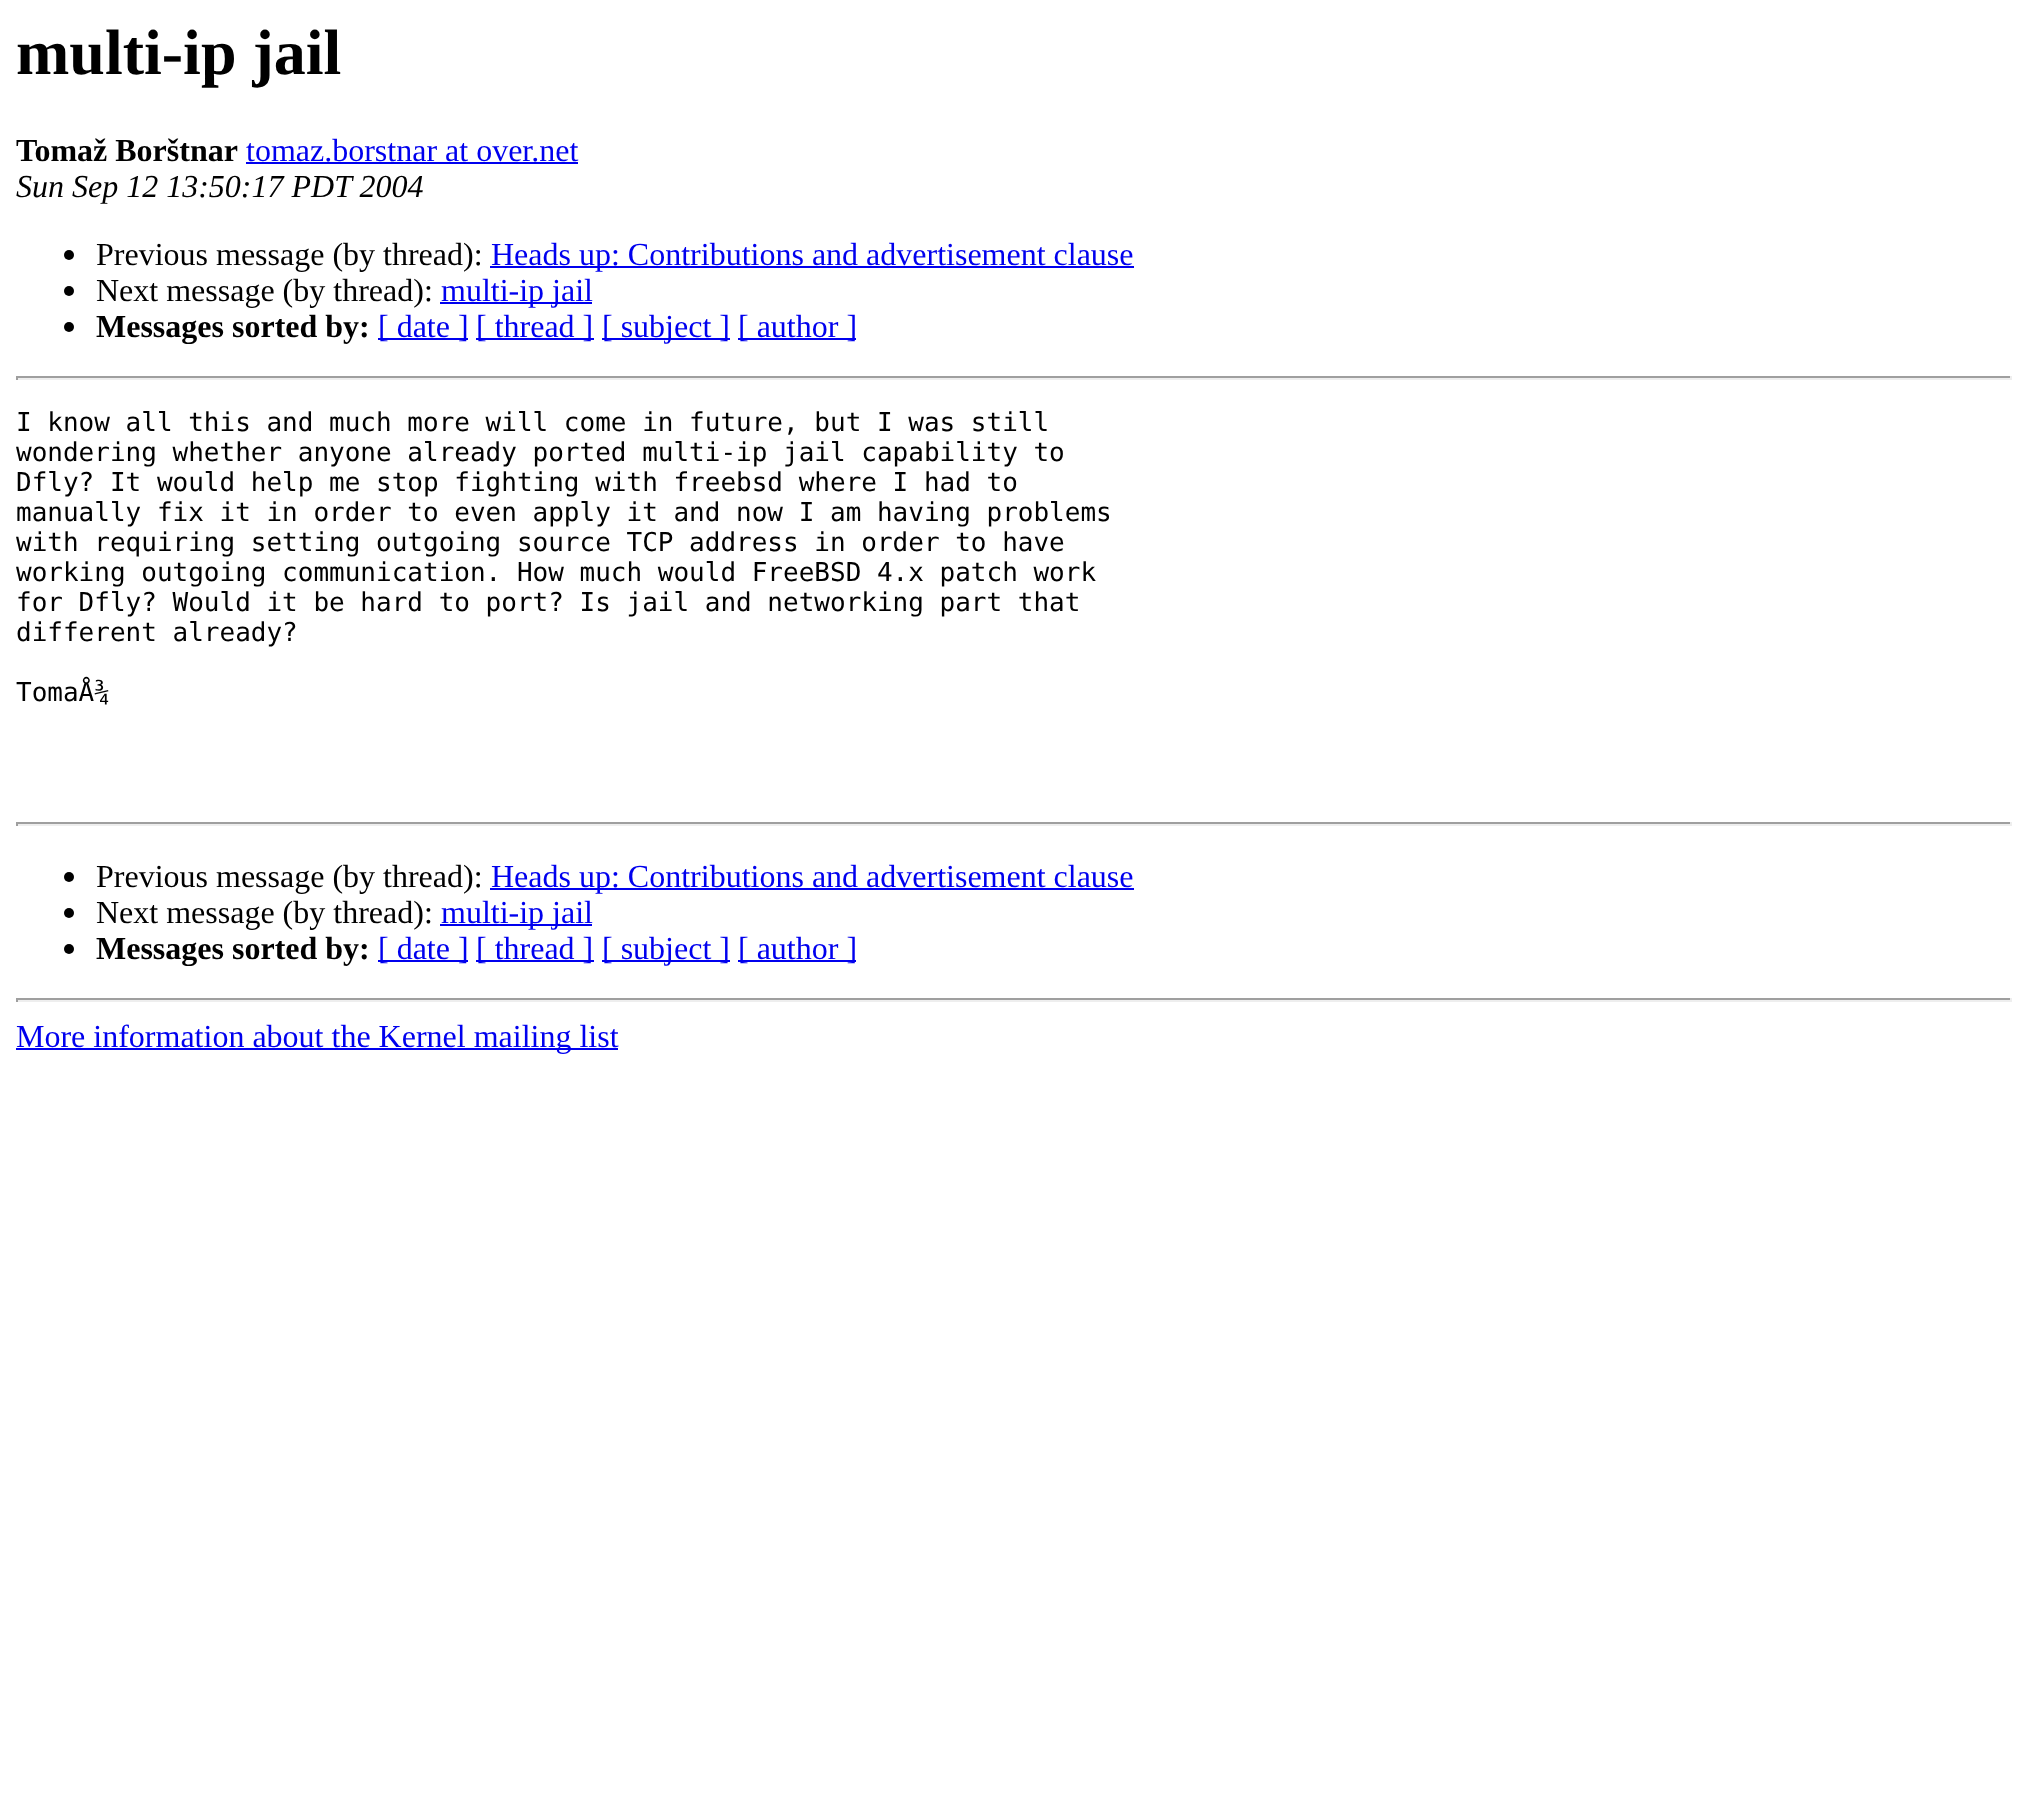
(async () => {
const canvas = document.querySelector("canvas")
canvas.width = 2028
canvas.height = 1817
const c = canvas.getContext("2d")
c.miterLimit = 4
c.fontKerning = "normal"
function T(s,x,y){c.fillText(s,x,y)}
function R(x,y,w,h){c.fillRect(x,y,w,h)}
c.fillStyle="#fff"
R(0,0,2028,1817)
c.font="bold 64px Liberation Serif"
c.fillStyle="#000"
T("multi-ip jail",16,74)
c.font="bold 32px Liberation Serif"
T("Tomaž Borštnar",16,161)
c.font="32px Liberation Serif"
c.fillStyle="#00e"
T("tomaz.borstnar at over.net",246,161)
R(246,162,332,2)
c.font="italic 32px Liberation Serif"
c.fillStyle="#000"
T("Sun Sep 12 13:50:17 PDT 2004",16,197)
c.beginPath()
c.arc(69,255,5,0,7)
c.fill()
c.font="32px Liberation Serif"
T("Previous message (by thread):",96,265)
c.fillStyle="#00e"
R(490,266,644,2)
T("Heads up: Contributions and advertisement clause",491,265)
c.fillStyle="#000"
c.beginPath()
c.arc(69,291,5,0,7)
c.fill()
T("Next message (by thread):",96,301)
c.fillStyle="#00e"
R(440,302,152,2)
T("multi-ip jail",441,301)
c.fillStyle="#000"
c.beginPath()
c.arc(69,327,5,0,7)
c.fill()
c.font="bold 32px Liberation Serif"
T("Messages sorted by:",96,337)
c.fillStyle="#00e"
R(378,338,90,2)
c.font="32px Liberation Serif"
T("[ date ]",378,337)
R(476,338,118,2)
T("[ thread ]",476,337)
R(602,338,128,2)
T("[ subject ]",602,337)
R(738,338,118,2)
T("[ author ]",738,337)
c.fillStyle="#9f9f9f"
R(16,376,1996,2)
c.fillStyle="#eee"
R(2010,376,2,4)
R(16,378,1996,2)
c.fillStyle="#9f9f9f"
R(16,376,2,4)
c.font="26px DejaVu Sans Mono"
c.fillStyle="#000"
T("I know all this and much more will come in future, but I was still",16,431)
T("wondering whether anyone already ported multi-ip jail capability to",16,461)
T("Dfly? It would help me stop fighting with freebsd where I had to",16,491)
T("manually fix it in order to even apply it and now I am having problems",16,521)
T("with requiring setting outgoing source TCP address in order to have",16,551)
T("working outgoing communication. How much would FreeBSD 4.x patch work",16,581)
T("for Dfly? Would it be hard to port? Is jail and networking part that",16,611)
T("different already?",16,641)
T("TomaÅ¾",16,701)
c.fillStyle="#9f9f9f"
R(16,822,1996,2)
c.fillStyle="#eee"
R(2010,822,2,4)
R(16,824,1996,2)
c.fillStyle="#9f9f9f"
R(16,822,2,4)
c.fillStyle="#000"
c.beginPath()
c.arc(69,877,5,0,7)
c.fill()
c.font="32px Liberation Serif"
T("Previous message (by thread):",96,887)
c.fillStyle="#00e"
R(490,888,644,2)
T("Heads up: Contributions and advertisement clause",491,887)
c.fillStyle="#000"
c.beginPath()
c.arc(69,913,5,0,7)
c.fill()
T("Next message (by thread):",96,923)
c.fillStyle="#00e"
R(440,924,152,2)
T("multi-ip jail",441,923)
c.fillStyle="#000"
c.beginPath()
c.arc(69,949,5,0,7)
c.fill()
c.font="bold 32px Liberation Serif"
T("Messages sorted by:",96,959)
c.fillStyle="#00e"
R(378,960,90,2)
c.font="32px Liberation Serif"
T("[ date ]",378,959)
R(476,960,118,2)
T("[ thread ]",476,959)
R(602,960,128,2)
T("[ subject ]",602,959)
R(738,960,118,2)
T("[ author ]",738,959)
c.fillStyle="#9f9f9f"
R(16,998,1996,2)
c.fillStyle="#eee"
R(2010,998,2,4)
R(16,1000,1996,2)
c.fillStyle="#9f9f9f"
R(16,998,2,4)
c.fillStyle="#00e"
R(16,1048,602,2)
T("More information about the Kernel mailing list",16,1047)
})()
